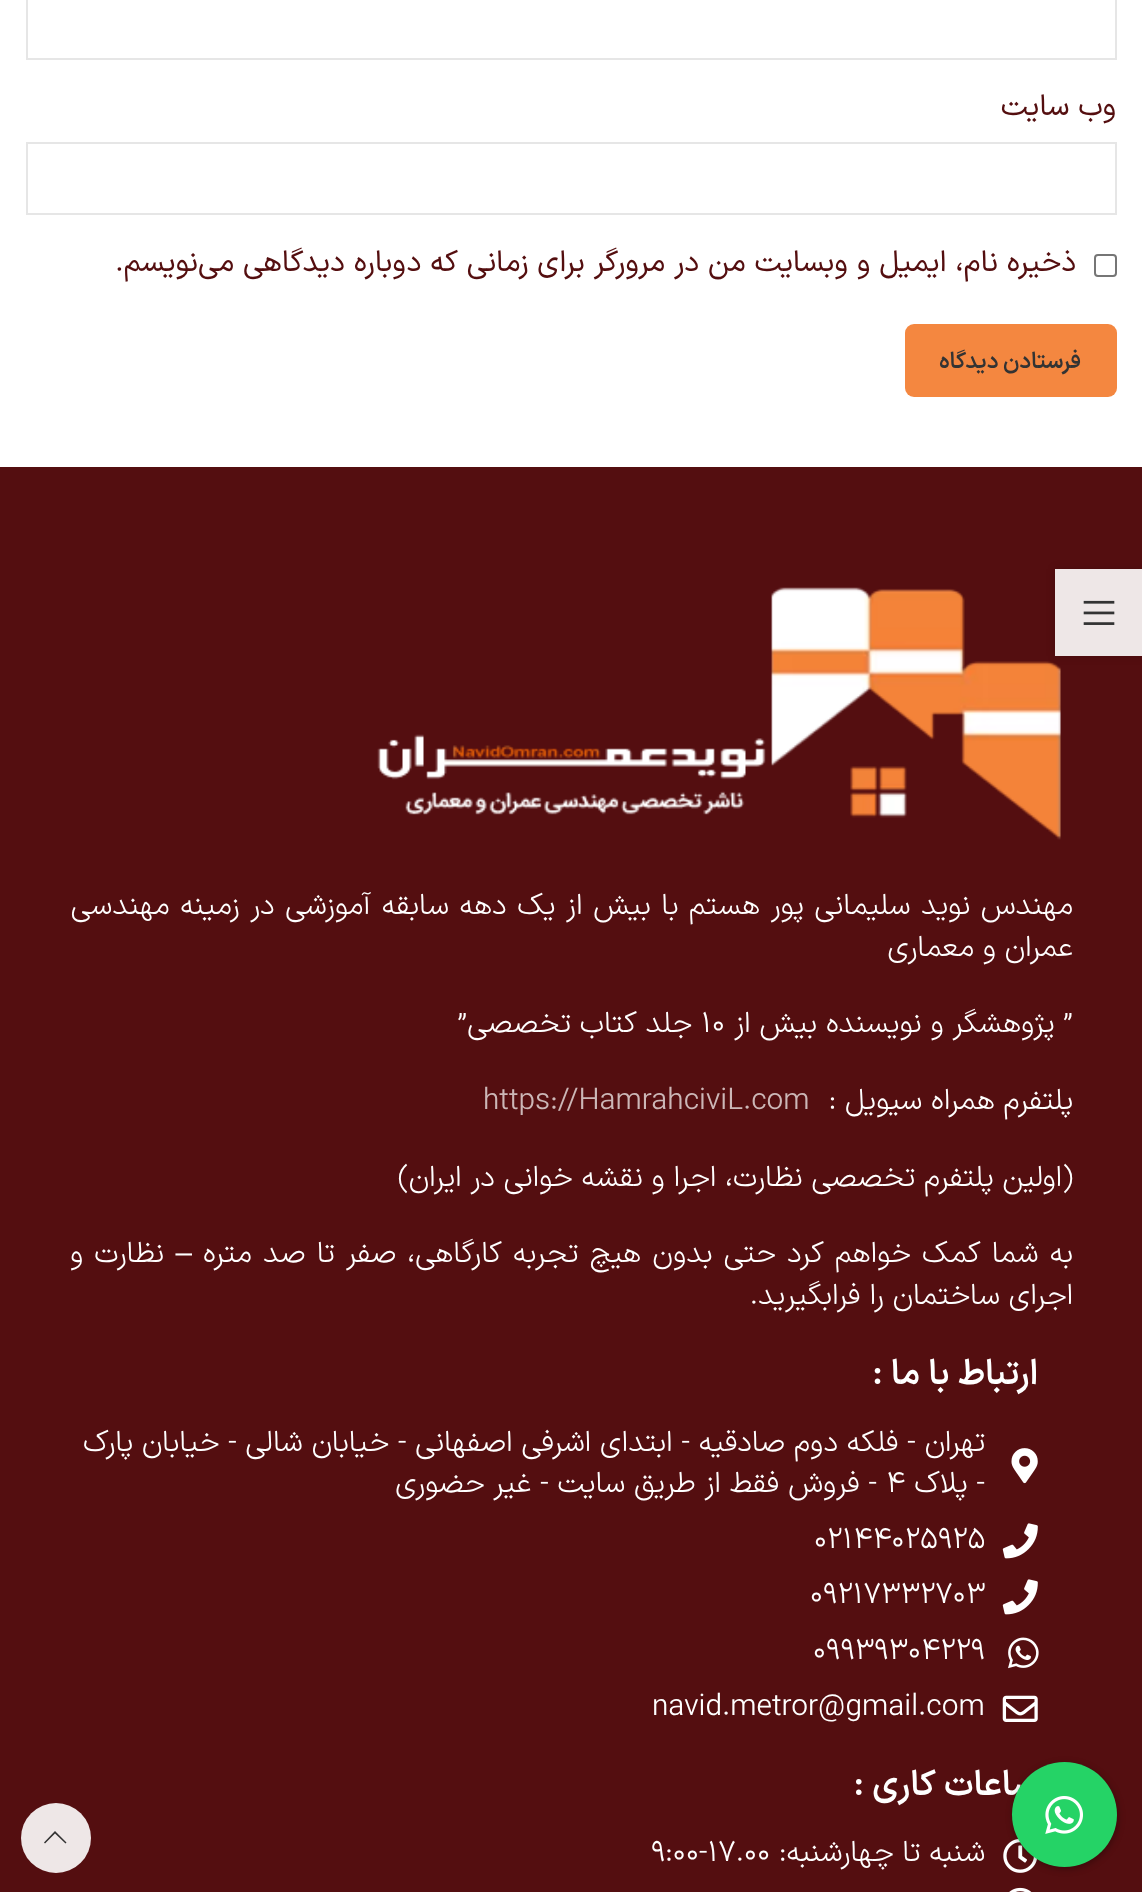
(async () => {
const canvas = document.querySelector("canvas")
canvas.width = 1142
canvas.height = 1892
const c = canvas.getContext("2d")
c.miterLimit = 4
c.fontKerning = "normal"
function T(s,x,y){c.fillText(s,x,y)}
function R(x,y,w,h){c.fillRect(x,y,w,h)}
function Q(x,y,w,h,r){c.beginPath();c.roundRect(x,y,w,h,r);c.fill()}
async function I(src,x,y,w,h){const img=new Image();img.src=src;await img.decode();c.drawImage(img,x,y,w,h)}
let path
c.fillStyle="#fff"
R(0,0,1142,1892)
c.strokeStyle="#e6e6e6"
c.lineWidth=2
c.strokeRect(27,-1,1089,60)
c.direction="rtl"
c.font="29.75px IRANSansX"
c.fillStyle="#540e0f"
T("وب‌ سایت",1116,115)
c.strokeRect(27,143,1089,71)
c.beginPath()
c.roundRect(1095,255,21,21,3)
c.strokeStyle="#767676"
c.stroke()
T("ذخیره نام، ایمیل و وبسایت من در مرورگر برای زمانی که دوباره دیدگاهی می‌نویسم.",1076,271)
c.fillStyle="#f48740"
Q(905,324,212,73,9)
c.wordSpacing="-1px"
c.font="600 22.75px IRANSansX"
c.fillStyle="#333"
T("فرستادن دیدگاه",1081,368)
c.fillStyle="#540e10"
R(0,467,1142,1425)
await I("1.png",377,587,684,253)
c.wordSpacing="1.75px"
c.font="300 29.75px IRANSansX"
c.fillStyle="#fff"
T("مهندس نوید سلیمانی پور هستم با بیش از یک دهه سابقه آموزشی در زمینه مهندسی",1073,914)
c.wordSpacing="0px"
T("عمران و معماری",1073,956)
T("” پژوهشگر و نویسنده بیش از",1073,1032)
c.direction="ltr"
T("۱۰",701,1032)
c.direction="rtl"
T("جلد کتاب تخصصی”",692,1032)
T("پلتفرم همراه سیویل :",1073,1109)
c.direction="ltr"
c.fillStyle="#ccb7b7"
T("https://HamrahciviL.com",483,1109)
c.direction="rtl"
c.fillStyle="#fff"
T("(اولین پلتفرم تخصصی نظارت، اجرا و نقشه خوانی در ایران)",1073,1186)
c.wordSpacing="2.4px"
T("به شما کمک خواهم کرد حتی بدون هیچ تجربه کارگاهی، صفر تا صد متره",1073,1262)
c.wordSpacing="0px"
c.font="29.75px Liberation Sans"
T("–",192,1262)
c.wordSpacing="2.4px"
c.font="300 29.75px IRANSansX"
T("نظارت و",164,1262)
c.wordSpacing="0px"
T("اجرای ساختمان را فرابگیرید.",1073,1304)
c.font="600 35px IRANSansX"
T("ارتباط با ما :",1038,1384)
await I("2.png",1011,1448,27,36)
c.font="300 29.75px IRANSansX"
T("تهران - فلکه دوم صادقیه - ابتدای اشرفی اصفهانی - خیابان شالی - خیابان پارک",985,1451)
T("- پلاک",985,1492)
c.direction="ltr"
T("۴",886,1492)
c.direction="rtl"
T("- فروش فقط از طریق سایت - غیر حضوری",877,1492)
await I("3.png",1002,1523,36,36)
c.direction="ltr"
T("۰۲۱۴۴۰۲۵۹۲۵",814,1548)
await I("3.png",1002,1579,36,36)
T("۰۹۲۱۷۳۳۲۷۰۳",810,1603)
await I("4.png",1008,1637,31,32)
T("۰۹۹۳۹۳۰۴۲۲۹",813,1659)
await I("5.png",1002,1695,36,27)
T("navid.metror@gmail.com",652,1715)
c.direction="rtl"
c.font="600 35px IRANSansX"
T("ساعات کاری :",1038,1795)
await I("6.png",1003,1839,34,34)
c.font="300 29.75px IRANSansX"
T("شنبه تا چهارشنبه:",985,1861)
c.direction="ltr"
T("۹:۰۰-۱۷.۰۰",651,1861)
await I("7.png",1009,1887,23,5)
c.fillStyle="#0000002b"
c.filter="blur(4.5px)"
c.beginPath()
c.rect(1055,569,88,87)
c.fill()
c.filter="none"
c.fillStyle="#eee7e7"
R(1055,569,87,87)
await I("8.png",1083,600,32,25)
c.fillStyle="#0000004d"
c.filter="blur(3.5px)"
c.beginPath()
c.roundRect(1013,1764,105,105,52.5)
c.fill()
c.filter="none"
c.fillStyle="#25d366"
c.beginPath()
c.arc(1064.5,1814.5,52.5,0,7)
c.fill()
await I("9.png",1045,1796,38,38)
c.fillStyle="#ffffffe6"
c.beginPath()
c.arc(56,1838,35,0,7)
c.fill()
c.fillStyle="#333"
path = new Path2D("M65.5 1843.5l1-1l-11.5-11.5l-11 11.5l1 1l10-10z")
c.fill(path)
})()
